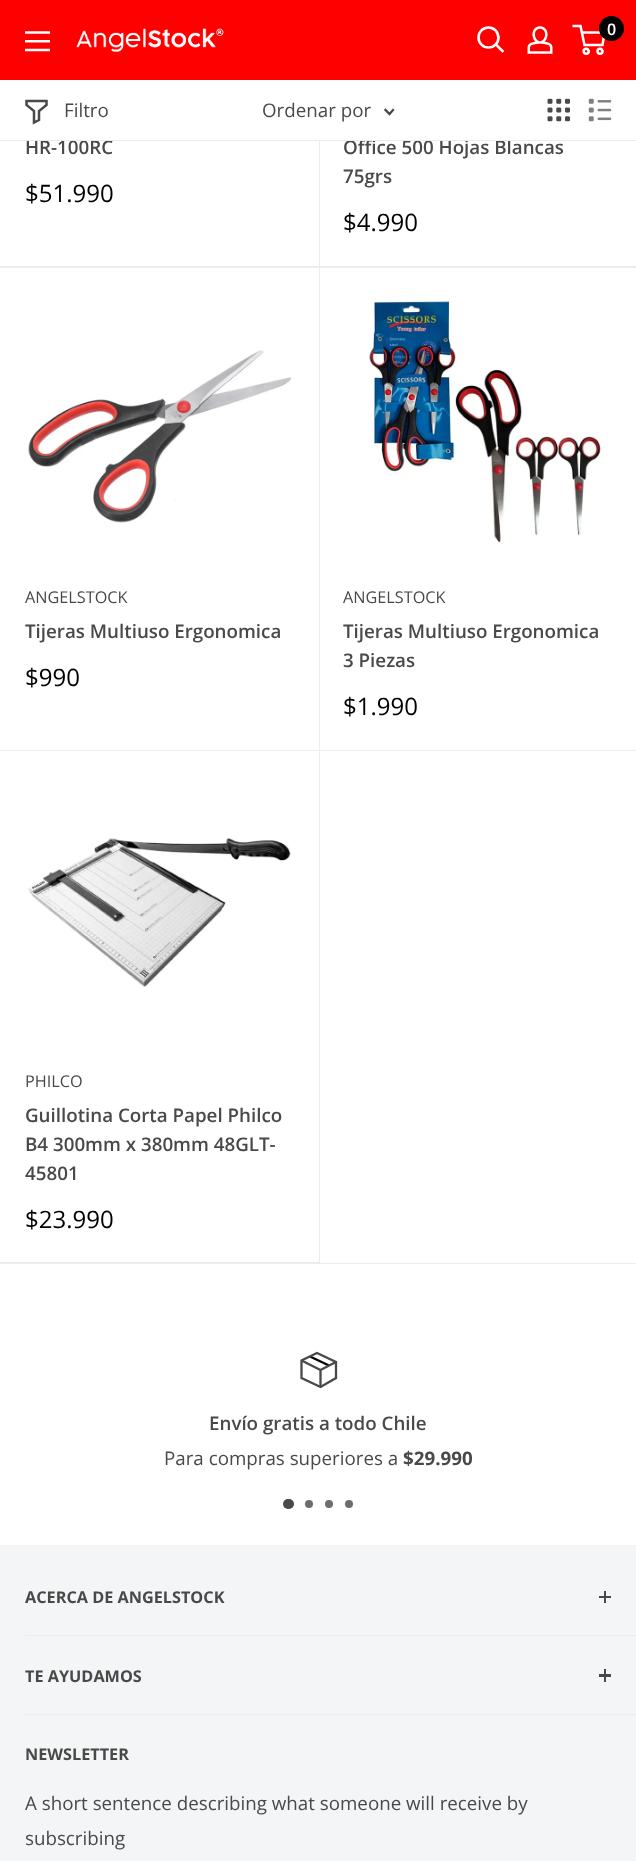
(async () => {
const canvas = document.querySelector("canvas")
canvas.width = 636
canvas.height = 1861
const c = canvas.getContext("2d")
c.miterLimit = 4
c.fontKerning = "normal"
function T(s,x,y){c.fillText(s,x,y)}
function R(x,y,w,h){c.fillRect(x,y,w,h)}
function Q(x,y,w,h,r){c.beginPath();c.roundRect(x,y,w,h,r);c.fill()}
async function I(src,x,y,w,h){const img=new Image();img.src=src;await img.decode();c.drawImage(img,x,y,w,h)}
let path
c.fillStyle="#fff"
R(0,0,636,1861)
c.fillStyle="#f00"
R(0,0,636,80)
await I("1.png",25,31,25,21)
await I("2.png",76,28,148,24)
path = new Path2D("M502.5 51l-6.5-6.5")
c.strokeStyle="#fff"
c.lineWidth=2.6
c.lineCap="square"
c.stroke(path)
c.beginPath()
c.arc(488.5,37.5,10,0,7)
c.stroke()
await I("3.png",527,26,26,28)
c.beginPath()
c.arc(586.2,51.2,2.5,0,7)
c.lineWidth=2.5
c.stroke()
c.beginPath()
c.arc(600,51.2,2.5,0,7)
c.stroke()
path = new Path2D("M581.5 32.5h23l-2 12.5h-18l-4-19h-8")
c.lineCap="butt"
c.stroke(path)
c.fillStyle="#000"
c.beginPath()
c.arc(611.5,28.5,12.5,0,7)
c.fill()
c.font="600 16px Open Sans"
c.fillStyle="#fff"
T("0",607,35)
c.fillStyle="#eaeded"
R(0,1263,636,1)
c.font="600 18.75px Open Sans"
c.fillStyle="#494948"
T("HR-100RC",25,154)
T("Office 500 Hojas Blancas",343,154)
c.fillStyle="#eaeded"
R(0,140,636,1)
c.fillStyle="#fff"
R(361,139,150,1)
path = new Path2D("M46.5 105l-7.5 6v9l-5 2.5v-11.5l-7.5-6v-4h20z")
c.strokeStyle="#494948"
c.lineCap="square"
c.stroke(path)
c.font="18.75px Open Sans"
c.fillStyle="#494948"
T("Filtro",64,117)
T("Ordenar por",262,117)
path = new Path2D("M393 110l-3.5 4l-4-4")
c.lineWidth=2.3
c.stroke(path)
await I("4.png",547,98,23,24)
await I("5.png",588,98,24,24)
c.font="24px Open Sans"
c.fillStyle="#000"
T("$51.990",25,202)
c.fillStyle="#eaeded"
path = new Path2D("M0 266v2h319v-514v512z")
c.fill(path)
R(319,141,1,125)
c.font="600 18.75px Open Sans"
c.fillStyle="#494948"
T("75grs",343,183)
c.font="24px Open Sans"
c.fillStyle="#000"
T("$4.990",343,231)
c.fillStyle="#eaeded"
R(319,266,317,2)
path = new Path2D("M0 750v1h319v-483v482z")
c.fill(path)
path = new Path2D("M1 266h318v484h1v-484z")
c.fill(path)
await I("6.png",28,350,264,173)
c.font="16.25px Open Sans"
c.fillStyle="#494948"
T("ANGELSTOCK",25,603)
c.font="600 18.75px Open Sans"
T("Tijeras Multiuso Ergonomica",25,638)
c.font="24px Open Sans"
c.fillStyle="#000"
T("$990",25,686)
await I("7.png",369,299,232,244)
c.font="16.25px Open Sans"
c.fillStyle="#494948"
T("ANGELSTOCK",343,603)
c.font="600 18.75px Open Sans"
T("Tijeras Multiuso Ergonomica",343,638)
T("3 Piezas",343,667)
c.font="24px Open Sans"
c.fillStyle="#000"
T("$1.990",343,715)
c.fillStyle="#eaeded"
R(319,750,317,1)
c.save()
c.beginPath()
c.rect(0,0,636,1263)
c.clip()
path = new Path2D("M0 1262v2h319v-513v511z")
c.fill(path)
c.restore()
await I("8.png",28,838,263,149)
c.font="16.25px Open Sans"
c.fillStyle="#494948"
T("PHILCO",25,1087)
c.font="600 18.75px Open Sans"
T("Guillotina Corta Papel Philco",25,1122)
T("B4 300mm x 380mm 48GLT-",25,1151)
T("45801",25,1180)
c.font="24px Open Sans"
c.fillStyle="#000"
T("$23.990",25,1228)
c.fillStyle="#eaeded"
path = new Path2D("M1 1262v1h319v-513h-1v512z")
c.fill(path)
path = new Path2D("M310 1356.5l19 9")
c.strokeStyle="#000"
c.lineCap="butt"
c.stroke(path)
path = new Path2D("M336 1362l-15.5 8l-19-9.5m19 9.5v17")
c.strokeStyle="#494948"
c.stroke(path)
path = new Path2D("M336 1362v16l-15.5 9l-19-9v-17.5l15.5-7.5z")
c.lineCap="square"
c.stroke(path)
c.font="600 18.75px Open Sans"
c.fillStyle="#494948"
T("Envío gratis a todo Chile",209,1430)
c.font="18.75px Open Sans"
T("Para compras superiores a",164,1465)
c.font="bold 18.75px Open Sans"
T("$29.990",403,1465)
Q(283,1499,11,10,5)
c.fillStyle="#6d6d6d"
c.beginPath()
c.arc(309,1504,4,0,7)
c.fill()
c.beginPath()
c.arc(329,1504,4,0,7)
c.fill()
c.beginPath()
c.arc(349,1504,4,0,7)
c.fill()
c.fillStyle="#f3f5f6"
R(0,1545,636,316)
c.fillStyle="#eaeded"
R(25,1635,611,1)
c.font="bold 16.25px Open Sans"
c.fillStyle="#494948"
T("ACERCA DE ANGELSTOCK",25,1603)
R(604,1591,2,12)
R(599,1596,12,2)
c.fillStyle="#eaeded"
R(25,1714,611,1)
c.fillStyle="#494948"
T("TE AYUDAMOS",25,1682)
R(604,1669,2,13)
R(599,1674,12,3)
T("NEWSLETTER",25,1760)
c.font="18.75px Open Sans"
T("A short sentence describing what someone will receive by",25,1810)
T("subscribing",25,1845)
})()
